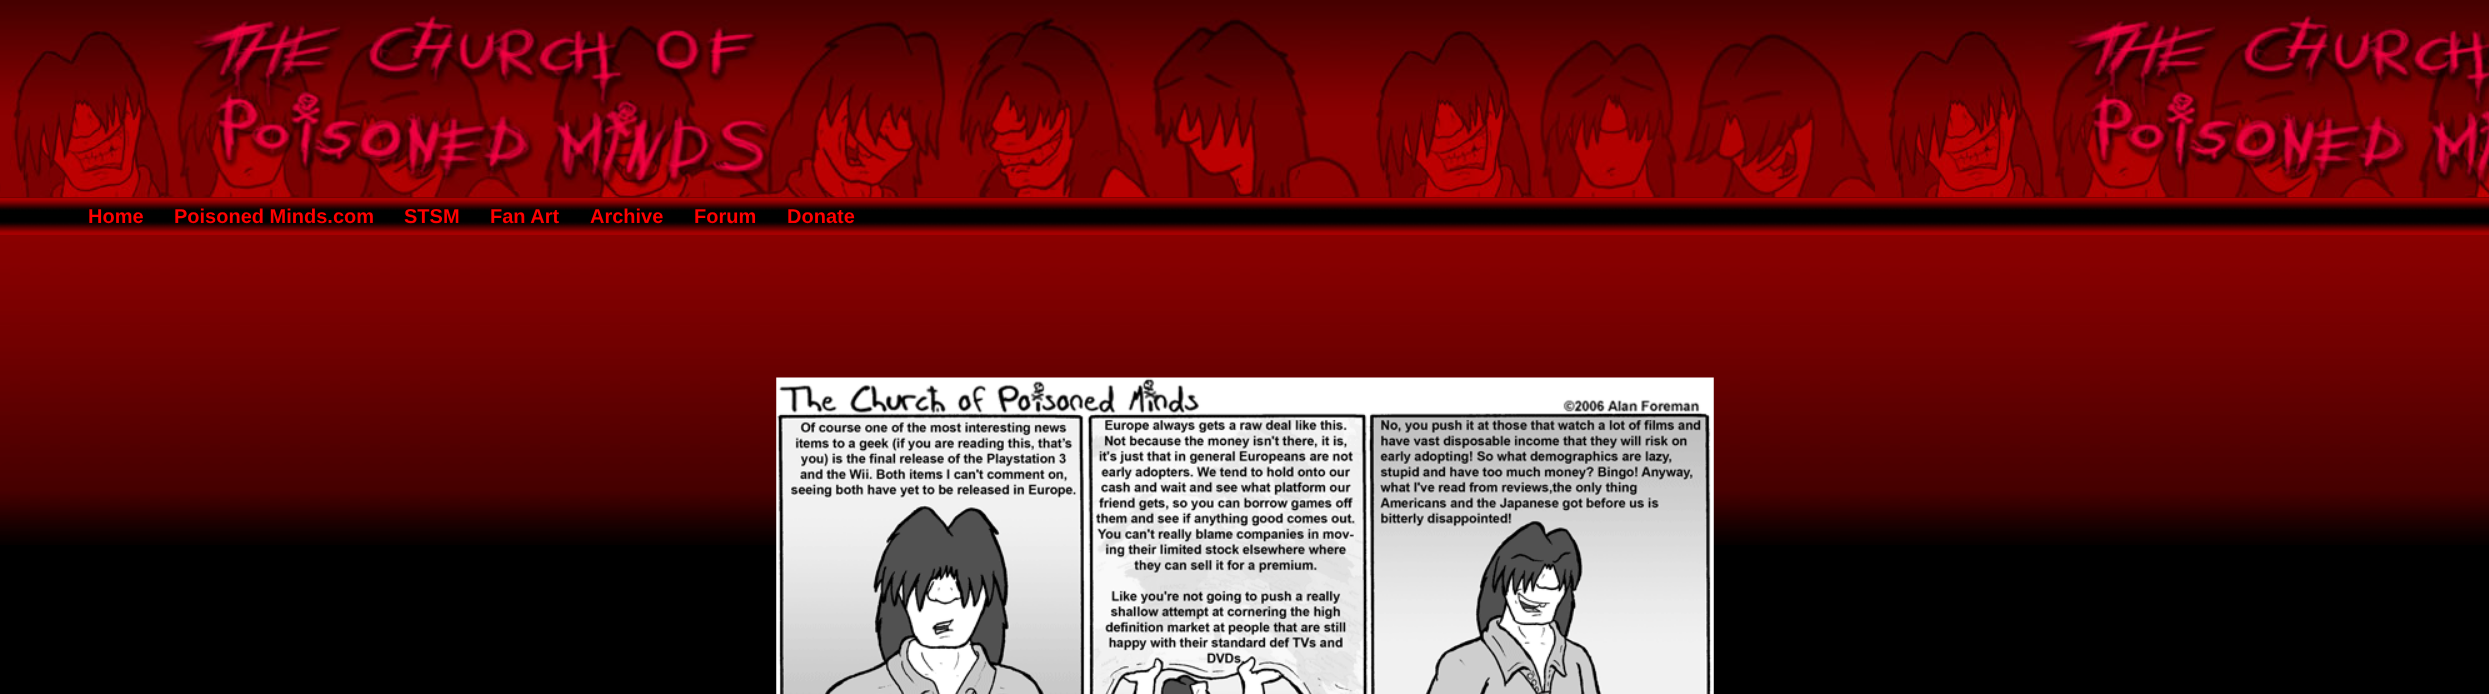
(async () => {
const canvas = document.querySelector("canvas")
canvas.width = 2489
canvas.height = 694
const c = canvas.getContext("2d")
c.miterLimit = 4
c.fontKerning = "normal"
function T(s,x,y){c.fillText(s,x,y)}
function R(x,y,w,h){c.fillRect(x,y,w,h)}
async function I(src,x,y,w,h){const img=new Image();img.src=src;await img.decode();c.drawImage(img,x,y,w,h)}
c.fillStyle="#000"
R(0,0,2489,694)
await I("1.png",0,0,2489,198)
await I("2.png",0,197,2489,38)
c.font="bold 20px Liberation Sans"
c.fillStyle="#f00"
T("Home",88,223)
T("Poisoned Minds.com",174,223)
T("STSM",404,223)
T("Fan Art",490,223)
T("Archive",590,223)
T("Forum",694,223)
T("Donate",787,223)
await I("3.png",0,235,2489,310)
await I("4.png",776,377,938,317)
})()
